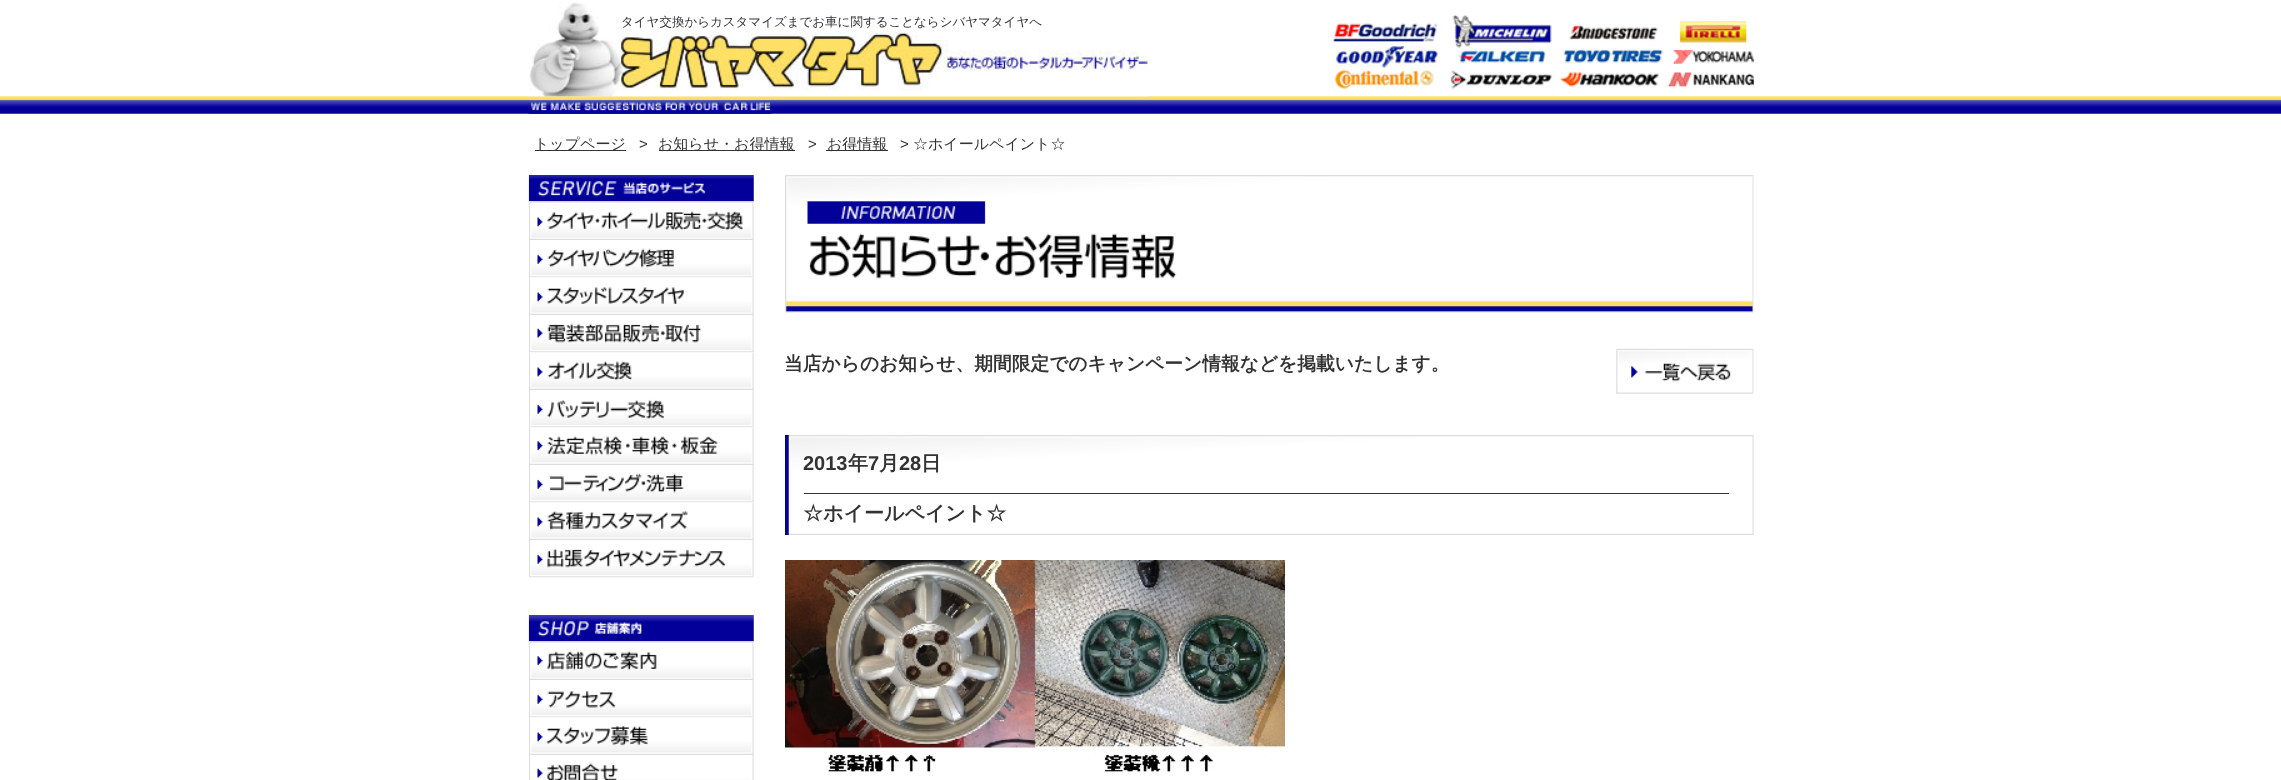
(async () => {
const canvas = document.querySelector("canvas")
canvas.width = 2281
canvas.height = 780
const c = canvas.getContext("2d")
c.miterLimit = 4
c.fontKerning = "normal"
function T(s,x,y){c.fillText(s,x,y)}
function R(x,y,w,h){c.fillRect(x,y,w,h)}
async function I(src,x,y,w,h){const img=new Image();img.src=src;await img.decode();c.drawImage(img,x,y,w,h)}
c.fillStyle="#fff"
R(0,0,2281,780)
await I("1.png",0,96,2281,18)
await I("2.png",528,99,244,15)
await I("3.png",528,2,620,95)
c.font="500 12.5px WenQuanYi Zen Hei"
c.fillStyle="#333"
T("タイヤ交換からカスタマイズまでお車に関することならシバヤマタイヤへ",621,26)
await I("4.png",1332,15,422,76)
R(535,150,91,1)
c.font="500 15px WenQuanYi Zen Hei"
T("トップページ",534,149)
c.font="15px Liberation Sans"
T(">",639,149)
R(659,150,136,1)
c.font="500 15px WenQuanYi Zen Hei"
T("お知らせ・お得情報",658,149)
c.font="15px Liberation Sans"
T(">",808,149)
R(826,150,62,1)
c.font="500 15px WenQuanYi Zen Hei"
T("お得情報",827,149)
c.font="15px Liberation Sans"
T(">",900,149)
c.font="500 15px WenQuanYi Zen Hei"
T("☆ホイールペイント☆",913,149)
await I("5.png",528,175,226,27)
await I("6.png",529,201,225,39)
await I("7.png",529,240,225,38)
await I("8.png",529,277,225,38)
await I("9.png",529,315,225,38)
await I("10.png",529,352,225,38)
await I("11.png",529,390,225,38)
await I("12.png",529,427,225,38)
await I("13.png",529,465,225,38)
await I("14.png",529,502,225,38)
await I("15.png",529,540,225,38)
await I("16.png",528,615,226,27)
await I("17.png",529,641,225,39)
await I("18.png",529,680,225,38)
await I("19.png",529,717,225,38)
await I("20.png",529,755,225,25)
await I("21.png",785,175,969,138)
c.font="bold 18.75px WenQuanYi Zen Hei"
T("当店からのお知らせ、期間限定でのキャンペーン情報などを掲載いたします。",784,370)
await I("22.png",1616,348,138,46)
await I("23.png",785,435,969,100)
R(804,493,925,1)
c.font="bold 20px Liberation Sans"
T("2013",803,470)
c.font="bold 20px WenQuanYi Zen Hei"
T("年",848,470)
c.font="bold 20px Liberation Sans"
T("7",868,470)
c.font="bold 20px WenQuanYi Zen Hei"
T("月",879,470)
c.font="bold 20px Liberation Sans"
T("28",899,470)
c.font="bold 20px WenQuanYi Zen Hei"
T("日",921,470)
T("☆ホイールペイント☆",803,520)
await I("24.png",785,560,500,212)
})()
